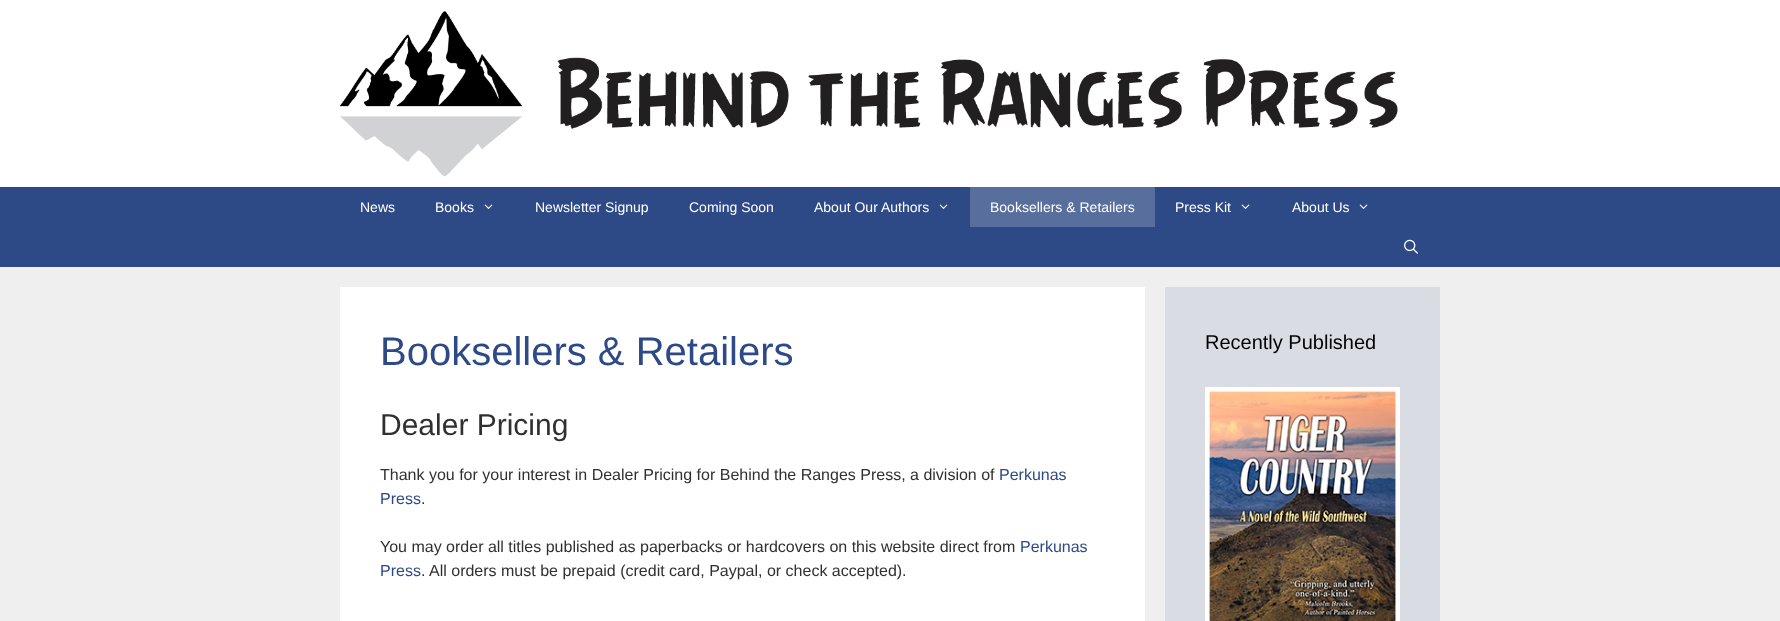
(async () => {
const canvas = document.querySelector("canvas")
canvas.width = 1780
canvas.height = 621
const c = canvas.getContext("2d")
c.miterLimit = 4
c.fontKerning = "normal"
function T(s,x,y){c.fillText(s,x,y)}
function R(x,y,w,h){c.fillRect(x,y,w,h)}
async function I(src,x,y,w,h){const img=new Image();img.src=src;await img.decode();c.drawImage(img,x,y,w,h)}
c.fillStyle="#efefef"
R(0,0,1780,621)
c.fillStyle="#fff"
R(0,0,1780,187)
await I("1.png",340,11,1058,166)
c.fillStyle="#2e4a86"
R(0,187,1780,80)
c.font="14px Liberation Sans"
c.fillStyle="#fff"
T("News",360,212)
T("Books",435,212)
await I("2.png",484,204,9,5)
T("Newsletter Signup",535,212)
T("Coming Soon",689,212)
T("About Our Authors",814,212)
await I("2.png",939,204,9,5)
c.fillStyle="#586e9d"
R(970,187,185,40)
c.fillStyle="#fff"
T("Booksellers & Retailers",990,212)
T("Press Kit",1175,212)
await I("2.png",1241,204,9,5)
T("About Us",1292,212)
await I("2.png",1359,204,9,5)
await I("3.png",1404,239,14,15)
R(340,287,805,334)
c.font="40px Liberation Sans"
c.fillStyle="#2e4a86"
T("Booksellers & Retailers",380,365)
c.font="30px Liberation Sans"
c.fillStyle="#303030"
T("Dealer Pricing",380,435)
c.font="16px Liberation Sans"
T("Thank you for your interest in Dealer Pricing for Behind the Ranges Press, a division of",380,480)
c.fillStyle="#2e4a86"
T("Perkunas",999,480)
T("Press",380,504)
c.fillStyle="#303030"
T(".",421,504)
T("You may order all titles published as paperbacks or hardcovers on this website direct from",380,552)
c.fillStyle="#2e4a86"
T("Perkunas",1020,552)
T("Press",380,576)
c.fillStyle="#303030"
T(". All orders must be prepaid (credit card, Paypal, or check accepted).",421,576)
c.fillStyle="#dadce4"
R(1165,287,275,334)
c.font="20px Liberation Sans"
c.fillStyle="#000"
T("Recently Published",1205,349)
await I("4.png",1205,387,195,234)
})()
